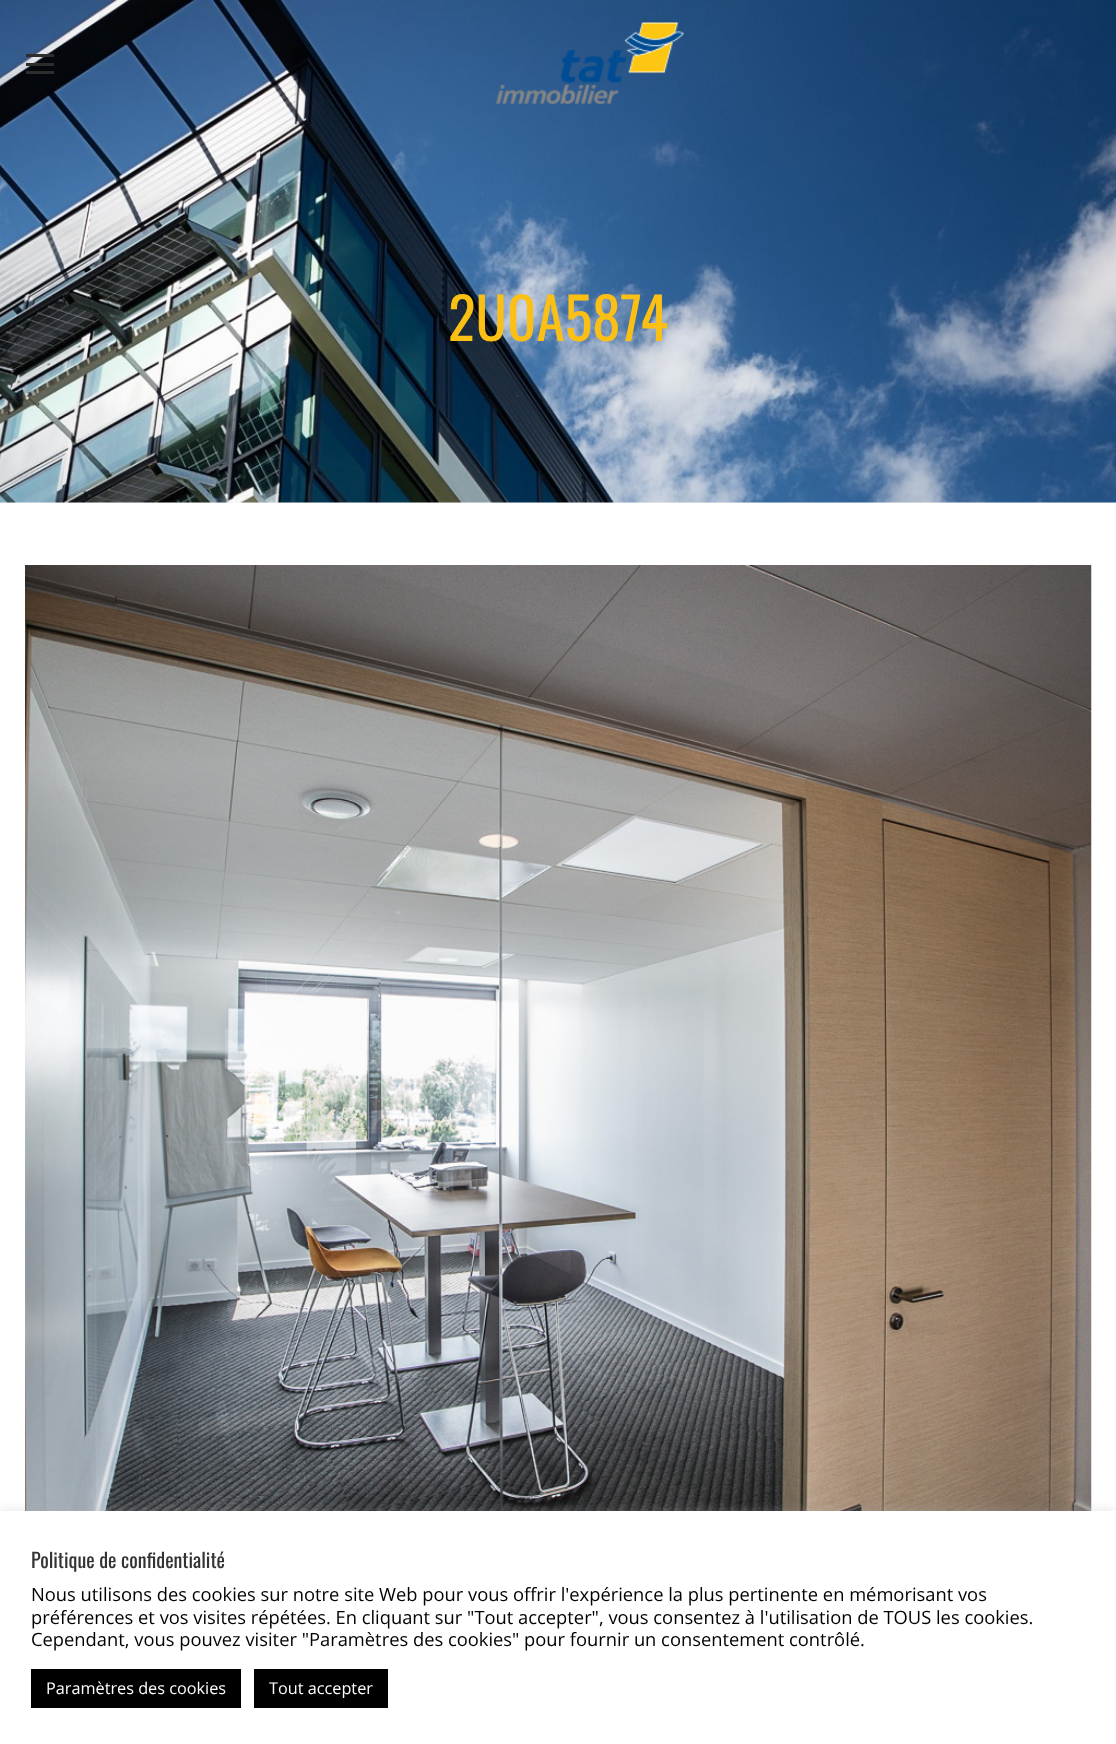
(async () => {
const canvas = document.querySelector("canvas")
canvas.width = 1116
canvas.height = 1744
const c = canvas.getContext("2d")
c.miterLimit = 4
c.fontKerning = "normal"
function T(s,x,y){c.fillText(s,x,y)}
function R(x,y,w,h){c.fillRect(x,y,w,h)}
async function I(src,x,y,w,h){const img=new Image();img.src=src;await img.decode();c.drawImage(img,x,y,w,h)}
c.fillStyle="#fff"
R(0,0,1116,1744)
c.fillStyle="#f5f5f5"
R(0,502,1116,1)
await I("2.png",0,0,1116,503)
c.fillStyle="#2d2d2d"
R(26,54,28,3)
R(26,63,28,3)
R(26,71,28,3)
await I("1.png",496,22,188,82)
c.font="57.5px Oswald"
c.fillStyle="#fcc015"
T("2U0A5874",448,341)
await I("3.png",25,565,1067,946)
c.fillStyle="#acabab4d"
c.filter="blur(6px)"
c.beginPath()
c.rect(0,1510,1116,234)
c.fill()
c.filter="none"
c.fillStyle="#fff"
R(0,1511,1116,233)
c.font="20px Oswald"
c.fillStyle="#333"
T("Politique de confidentialité",31,1568)
c.font="18.33px Open Sans"
c.fillStyle="#000"
T("Nous utilisons des cookies sur notre site Web pour vous offrir l'expérience la plus pertinente en mémorisant vos",31,1601)
T("préférences et vos visites répétées. En cliquant sur \"Tout accepter\", vous consentez à l'utilisation de TOUS les cookies.",31,1624)
T("Cependant, vous pouvez visiter \"Paramètres des cookies\" pour fournir un consentement contrôlé.",31,1646)
R(31,1669,210,39)
c.font="16.25px Open Sans"
c.fillStyle="#fff"
T("Paramètres des cookies",46,1694)
c.fillStyle="#000"
R(254,1669,134,39)
c.fillStyle="#fff"
T("Tout accepter",269,1694)
})()
